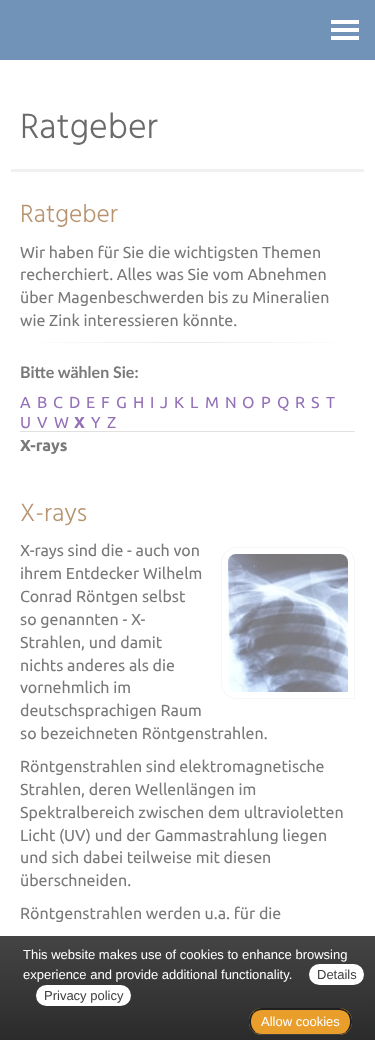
(async () => {
const canvas = document.querySelector("canvas")
canvas.width = 375
canvas.height = 1040
const c = canvas.getContext("2d")
c.miterLimit = 4
c.fontKerning = "normal"
function T(s,x,y){c.fillText(s,x,y)}
function R(x,y,w,h){c.fillRect(x,y,w,h)}
function Q(x,y,w,h,r){c.beginPath();c.roundRect(x,y,w,h,r);c.fill()}
async function I(src,x,y,w,h){const img=new Image();img.src=src;await img.decode();c.drawImage(img,x,y,w,h)}
let gradient, path
c.fillStyle="#fff"
R(0,0,375,1040)
c.fillStyle="#7093b7"
R(0,0,375,60)
c.fillStyle="#fff"
R(331,20,28,4)
R(331,28,28,4)
R(331,36,28,4)
c.fillStyle="#f0f0f0"
R(11,169,353,3)
c.font="300 36px Hind"
c.fillStyle="#6a6a6a"
T("Ratgeber",20,138)
c.font="300 25.5px Hind"
c.fillStyle="#b79470"
T("Ratgeber",20,222)
c.font="16px Ubuntu"
c.fillStyle="#797979"
T("Wir haben für Sie die wichtigsten Themen",20,258)
T("recherchiert. Alles was Sie vom Abnehmen",20,280)
T("über Magenbeschwerden bis zu Mineralien",20,303)
T("wie Zink interessieren könnte.",20,326)
gradient = c.createLinearGradient(20,343,355,343)
gradient.addColorStop(0,"#fff")
gradient.addColorStop(.5,"#e9e9e9")
gradient.addColorStop(1,"#fff")
c.fillStyle = gradient
R(39,342,297,1)
c.font="bold 16px Lato"
c.fillStyle="#797979"
T("Bitte wählen Sie:",20,378)
c.font="16px Ubuntu"
c.fillStyle="#9470b7"
T("A",20,408)
T("B",37,408)
T("C",53,408)
T("D",69,408)
T("E",86,408)
T("F",101,408)
T("G",116,408)
T("H",133,408)
T("I",150,408)
T("J",160,408)
T("K",174,408)
T("L",190,408)
T("M",205,408)
T("N",225,408)
T("O",242,408)
T("P",261,408)
T("Q",277,408)
T("R",295,408)
T("S",311,408)
T("T",326,408)
T("U",20,428)
T("V",37,428)
T("W",54,428)
c.font="bold 16px Ubuntu"
T("X",74,428)
c.font="16px Ubuntu"
T("Y",91,428)
T("Z",107,428)
c.fillStyle="#e1e1e1"
R(20,431,335,1)
c.font="bold 16px Ubuntu"
c.fillStyle="#797979"
T("X-rays",20,451)
c.font="300 25.5px Hind"
c.fillStyle="#b79470"
T("X-rays",20,521)
c.font="16px Ubuntu"
c.fillStyle="#797979"
T("X-rays sind die - auch von",20,556)
T("ihrem Entdecker Wilhelm",20,579)
T("Conrad Röntgen selbst",20,602)
T("so genannten - X-",20,625)
T("Strahlen, und damit",20,648)
T("nichts anderes als die",20,671)
T("vornehmlich im",20,693)
T("deutschsprachigen Raum",20,716)
T("so bezeichneten Röntgenstrahlen.",20,739)
c.beginPath()
c.roundRect(221.5,547.5,133,151,[14.5,14.5,0,14.5])
c.strokeStyle="#f6f6f6"
c.stroke()
await I("1.png",228,554,120,138)
T("Röntgenstrahlen sind elektromagnetische",20,772)
T("Strahlen, deren Wellenlängen im",20,795)
T("Spektralbereich zwischen dem ultravioletten",20,818)
T("Licht (UV) und der Gammastrahlung liegen",20,841)
T("und sich dabei teilweise mit diesen",20,863)
T("überschneiden.",20,886)
T("Röntgenstrahlen werden u.a. für die",20,919)
c.fillStyle="#eff6fc"
R(0,1024,375,16)
c.fillStyle="#d8e7f7"
R(0,1023,375,1)
gradient = c.createLinearGradient(188,936,188,1040)
gradient.addColorStop(0,"#3a3a3af2")
gradient.addColorStop(1,"#202020f2")
c.fillStyle = gradient
R(0,936,375,104)
c.font="13px Liberation Sans"
c.fillStyle="#fff"
T("This website makes use of cookies to enhance browsing",23,959)
T("experience and provide additional functionality.",23,979)
Q(309,964,55,21,10.5)
c.fillStyle="#3e3e3e"
T("Details",317,979)
c.fillStyle="#fff"
Q(36,985,95,21,10.5)
c.fillStyle="#3e3e3e"
T("Privacy policy",44,1000)
c.fillStyle="#e99e2c"
Q(249,1008,103,27,13)
c.fillStyle="#202020"
path = new Path2D("M262 1008c-4 0-7 2-9 4l1 1c2-2 5-3 8-3h77c3 0 6 1 8 3l1-1c-2-2-6-4-9-4z")
c.fill(path)
path = new Path2D("M352 1022c0-4-1-7.5-4-10l-1 1c4.5 5 4 14.5-1.5 19l1 .5c3.5-2.5 5.5-6.5 5.5-10.5z")
c.fill(path)
c.fillStyle="#3e3e3e"
path = new Path2D("M262 1035h77c3 0 6-1 8-3h-1c-2 1-5 2-7 2h-77c-2 0-5-1-7-2h-1c2 2 5 3 8 3z")
c.fill(path)
c.fillStyle="#202020"
path = new Path2D("M249 1021c0 4.5 1.5 8.5 5.5 11.5l1-.5c-5.5-4.5-6-14-1.5-19l-1-1c-2.5 2-4 5.5-4 9z")
c.fill(path)
c.fillStyle="#fff"
T("Allow cookies",261,1026)
})()
